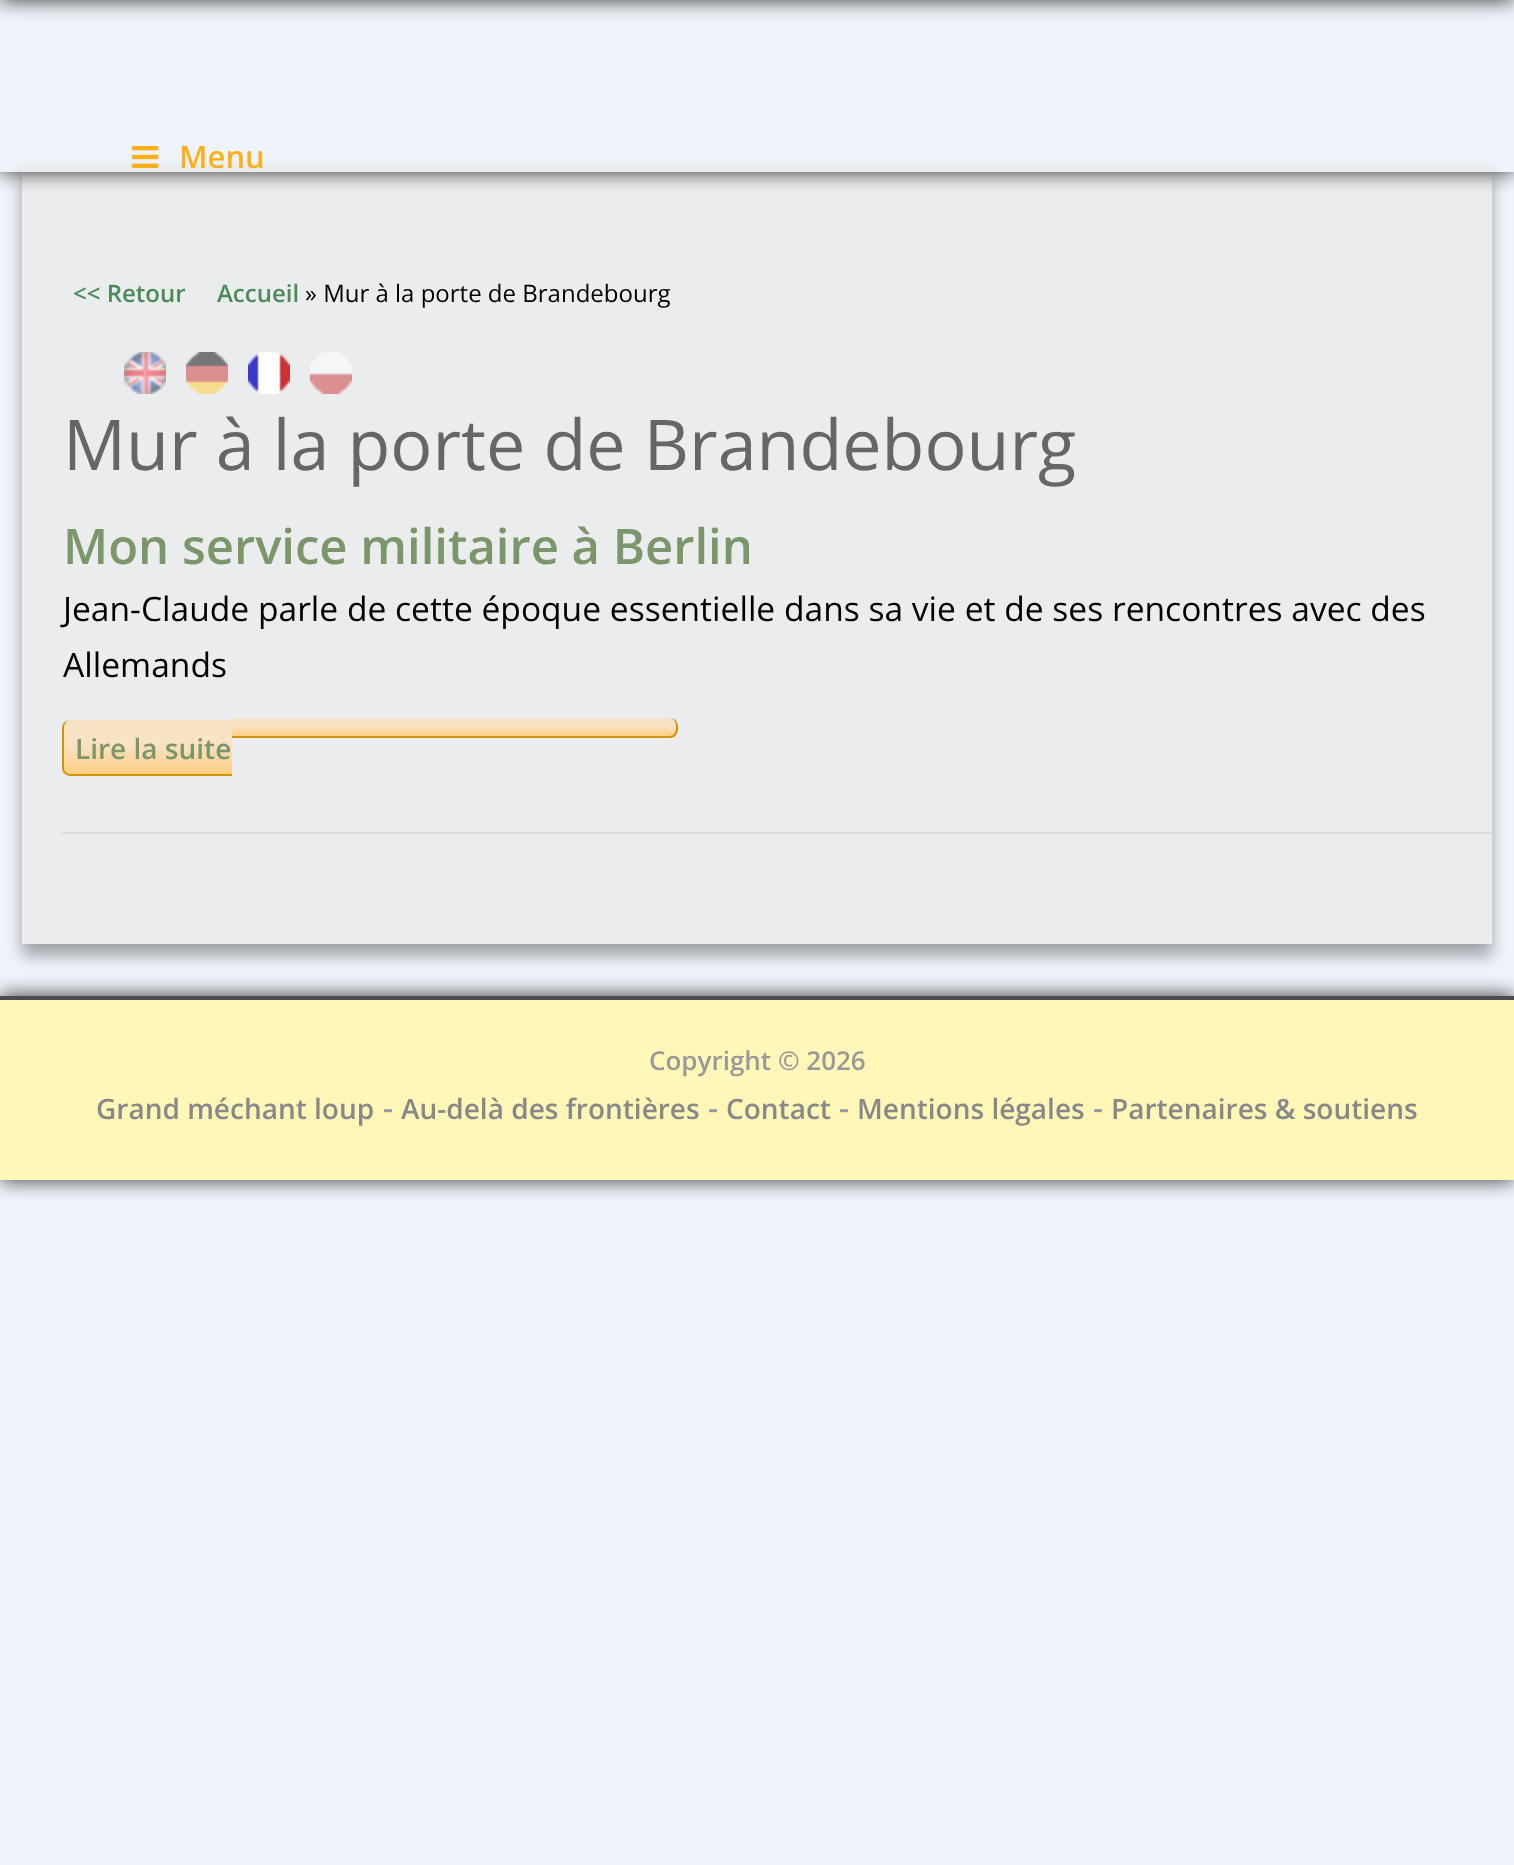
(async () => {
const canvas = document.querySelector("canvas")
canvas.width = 1514
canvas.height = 1865
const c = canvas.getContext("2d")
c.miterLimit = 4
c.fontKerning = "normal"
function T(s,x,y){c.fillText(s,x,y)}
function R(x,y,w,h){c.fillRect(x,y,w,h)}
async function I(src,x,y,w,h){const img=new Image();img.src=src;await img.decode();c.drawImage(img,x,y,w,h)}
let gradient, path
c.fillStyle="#eff3fa"
R(0,0,1514,1865)
c.fillStyle="#000000cc"
c.filter="blur(10px)"
c.beginPath()
c.rect(0,-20,1514,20)
c.fill()
c.filter="none"
c.fillStyle="#00000054"
c.filter="blur(8px)"
c.beginPath()
c.rect(22,176,1470,780)
c.fill()
c.filter="none"
c.fillStyle="#ebeced"
R(22,164,1470,780)
c.save()
c.beginPath()
c.rect(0,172,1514,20)
c.clip()
c.fillStyle="#000000cc"
c.filter="blur(10px)"
c.beginPath()
c.rect(0,-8,1514,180)
c.fill()
c.filter="none"
c.restore()
await I("1.png",132,146,27,22)
c.font="600 31px Open Sans"
c.fillStyle="#fbaf1b"
T("Menu",179,168)
c.font="600 24px Open Sans"
c.fillStyle="#4a8b58"
T("<< Retour",73,302)
T("Accueil",217,302)
c.font="24px Open Sans"
c.fillStyle="#000"
T("» Mur à la porte de Brandebourg",305,302)
await I("2.png",124,352,42,42)
await I("3.png",186,352,42,42)
await I("4.png",248,352,42,42)
await I("5.png",310,352,42,42)
c.font="70px Open Sans"
c.fillStyle="#666"
T("Mur à la porte de Brandebourg",63,470)
c.fillStyle="#ddd"
R(62,832,1430,2)
c.font="600 49px Open Sans"
c.fillStyle="#7a966a"
T("Mon service militaire à Berlin",63,564)
c.font="33.6px Open Sans"
c.fillStyle="#000"
T("Jean-Claude parle de cette époque essentielle dans sa vie et de ses rencontres avec des",63,621)
T("Allemands",63,677)
c.save()
c.beginPath()
c.roundRect(62,720,170,56,[8,0,0,8])
c.clip()
gradient = c.createLinearGradient(148,720,148,774)
gradient.addColorStop(0,"#f9e3c6")
gradient.addColorStop(.4,"#f9e3c6")
gradient.addColorStop(1,"#fece85")
c.fillStyle = gradient
c.beginPath()
c.roundRect(62,720,170,54,[8,0,0,0])
c.fill()
gradient = c.createLinearGradient(148,774,148,828)
gradient.addColorStop(0,"#f9e3c6")
gradient.addColorStop(.4,"#f9e3c6")
gradient.addColorStop(1,"#fece85")
c.fillStyle = gradient
R(62,774,8,2)
c.restore()
c.fillStyle="#d19405"
path = new Path2D("M70 720h162v56h-162c-4 0-8-4-8-8v-40c0-4 4-8 8-8zm0 0h162v54h-162c-3 0-6-3-6-6v-40c0-4 3-8 6-8z")
c.fill(path,"evenodd")
c.font="600 28px Open Sans"
c.fillStyle="#7a966a"
T("Lire la suite",75,759)
c.save()
c.beginPath()
c.roundRect(232,718,446,20,[0,8,8,0])
c.clip()
gradient = c.createLinearGradient(454,718,454,736)
gradient.addColorStop(0,"#f9e3c6")
gradient.addColorStop(.4,"#f9e3c6")
gradient.addColorStop(1,"#fece85")
c.fillStyle = gradient
c.beginPath()
c.roundRect(232,718,446,18,[0,8,0,0])
c.fill()
c.restore()
c.fillStyle="#d19405"
path = new Path2D("M232 718h438l4 1c7 5 5 19-4 19h-438zm0 0h438c7 0 8 14 3 17l-3 1h-438z")
c.fill(path,"evenodd")
c.fillStyle="#000000cc"
c.filter="blur(10px)"
c.beginPath()
c.rect(0,996,1514,184)
c.fill()
c.filter="none"
c.fillStyle="#fff7b8"
R(0,1000,1514,180)
c.fillStyle="#4d4b4e"
R(0,996,1514,4)
c.font="600 26px Open Sans"
c.fillStyle="#999"
T("Copyright © 2026",649,1070)
c.font="600 28px Open Sans"
c.fillStyle="#888"
T("Grand méchant loup",96,1119)
c.font="600 31px Open Sans"
c.fillStyle="#999"
T("-",383,1119)
c.font="600 28px Open Sans"
c.fillStyle="#888"
T("Au-delà des frontières",401,1119)
c.font="600 31px Open Sans"
c.fillStyle="#999"
T("-",708,1119)
c.font="600 28px Open Sans"
c.fillStyle="#888"
T("Contact",726,1119)
c.font="600 31px Open Sans"
c.fillStyle="#999"
T("-",839,1119)
c.font="600 28px Open Sans"
c.fillStyle="#888"
T("Mentions légales",857,1119)
c.font="600 31px Open Sans"
c.fillStyle="#999"
T("-",1093,1119)
c.font="600 28px Open Sans"
c.fillStyle="#888"
T("Partenaires & soutiens",1111,1119)
})()
